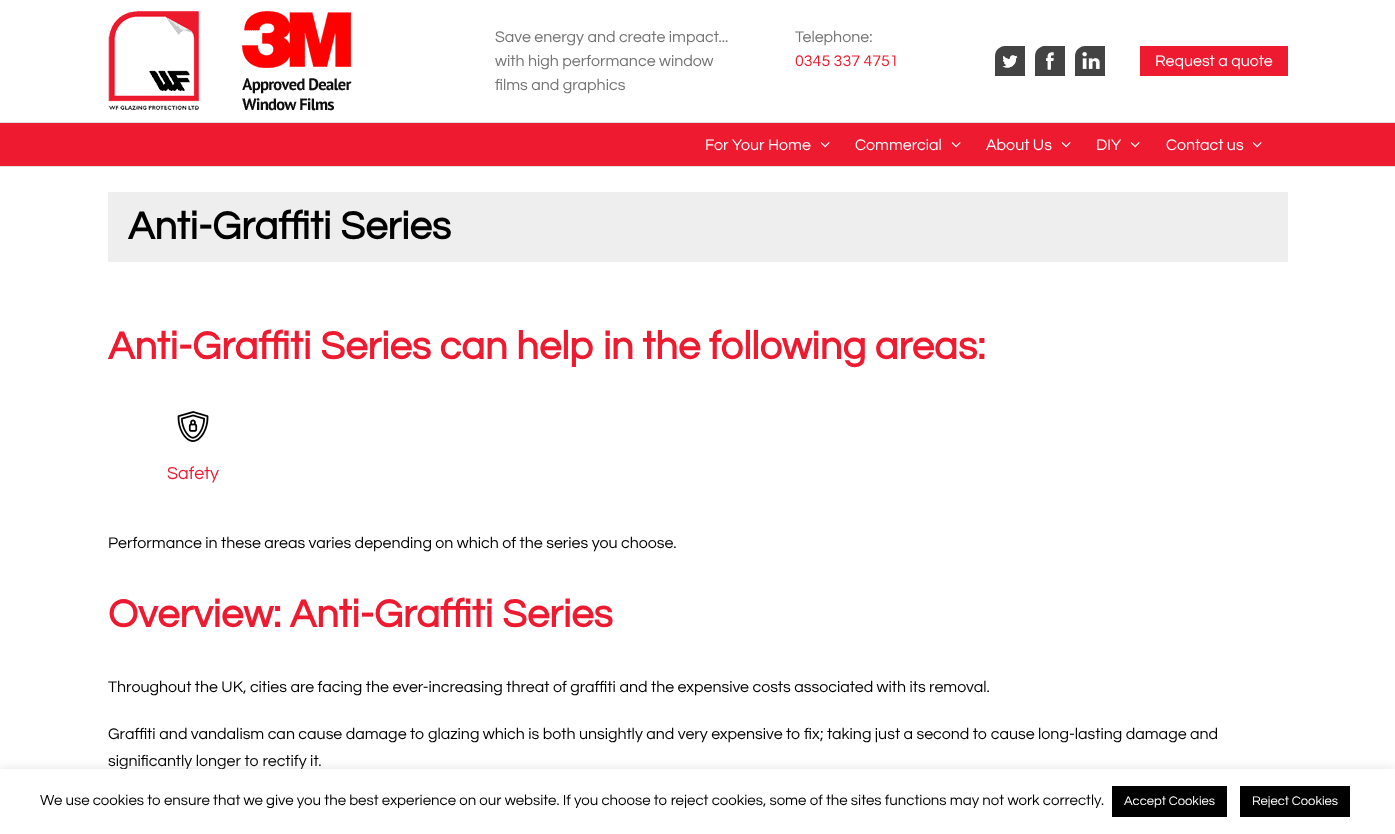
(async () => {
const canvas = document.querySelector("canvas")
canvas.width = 1395
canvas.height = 834
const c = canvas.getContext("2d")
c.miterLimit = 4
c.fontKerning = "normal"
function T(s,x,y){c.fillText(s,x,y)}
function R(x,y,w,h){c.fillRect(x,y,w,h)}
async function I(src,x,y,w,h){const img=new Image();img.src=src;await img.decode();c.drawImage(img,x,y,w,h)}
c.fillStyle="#fff"
R(0,0,1395,834)
c.fillStyle="#e1e1e1"
R(0,122,1395,1)
await I("1.png",108,11,244,100)
c.font="16px Questrial"
c.fillStyle="#747474"
T("Save energy and create impact...",495,42)
T("with high performance window",495,66)
T("films and graphics",495,90)
T("Telephone:",795,42)
c.fillStyle="#ee1a30"
T("0345 337 4751",795,66)
await I("2.png",995,46,30,30)
await I("3.png",1035,46,30,30)
await I("4.png",1075,46,30,30)
R(1140,46,148,30)
c.fillStyle="#fff"
T("Request a quote",1155,66)
c.fillStyle="#ee1a30"
R(0,123,1395,43)
c.fillStyle="#e1e1e1"
R(0,166,1395,1)
c.fillStyle="#fff"
T("For Your Home",705,150)
await I("5.png",820,142,10,6)
T("Commercial",855,150)
await I("5.png",951,142,10,6)
T("About Us",986,150)
await I("5.png",1061,142,10,6)
T("DIY",1096,150)
await I("5.png",1130,142,10,6)
T("Contact us",1166,150)
await I("5.png",1252,142,10,6)
c.fillStyle="#eee"
R(108,192,1180,70)
c.font="bold 40px Questrial"
c.fillStyle="#000"
T("Anti-Graffiti Series",128,239)
c.fillStyle="#ee1a30"
T("Anti-Graffiti Series can help in the following areas:",108,359)
await I("6.png",177,411,32,31)
c.font="18px Questrial"
T("Safety",167,479)
c.font="16px Questrial"
c.fillStyle="#000"
T("Performance in these areas varies depending on which of the series you choose.",108,548)
c.font="bold 40px Questrial"
c.fillStyle="#ee1a30"
T("Overview: Anti-Graffiti Series",108,627)
c.font="16px Questrial"
c.fillStyle="#000"
T("Throughout the UK, cities are facing the ever-increasing threat of graffiti and the expensive costs associated with its removal.",108,692)
T("Graffiti and vandalism can cause damage to glazing which is both unsightly and very expensive to fix; taking just a second to cause long-lasting damage and",108,739)
T("significantly longer to rectify it.",108,766)
c.fillStyle="#acabab4d"
c.filter="blur(5px)"
c.beginPath()
c.rect(0,768,1395,65)
c.fill()
c.filter="none"
c.fillStyle="#fff"
R(0,769,1395,65)
c.font="15px Questrial"
c.fillStyle="#000"
T("We use cookies to ensure that we give you the best experience on our website. If you choose to reject cookies, some of the sites functions may not work correctly.",40,805)
R(1112,786,115,31)
c.font="13px Questrial"
c.fillStyle="#fff"
T("Accept Cookies",1124,805)
c.fillStyle="#000"
R(1240,786,110,31)
c.fillStyle="#fff"
T("Reject Cookies",1252,805)
})()
